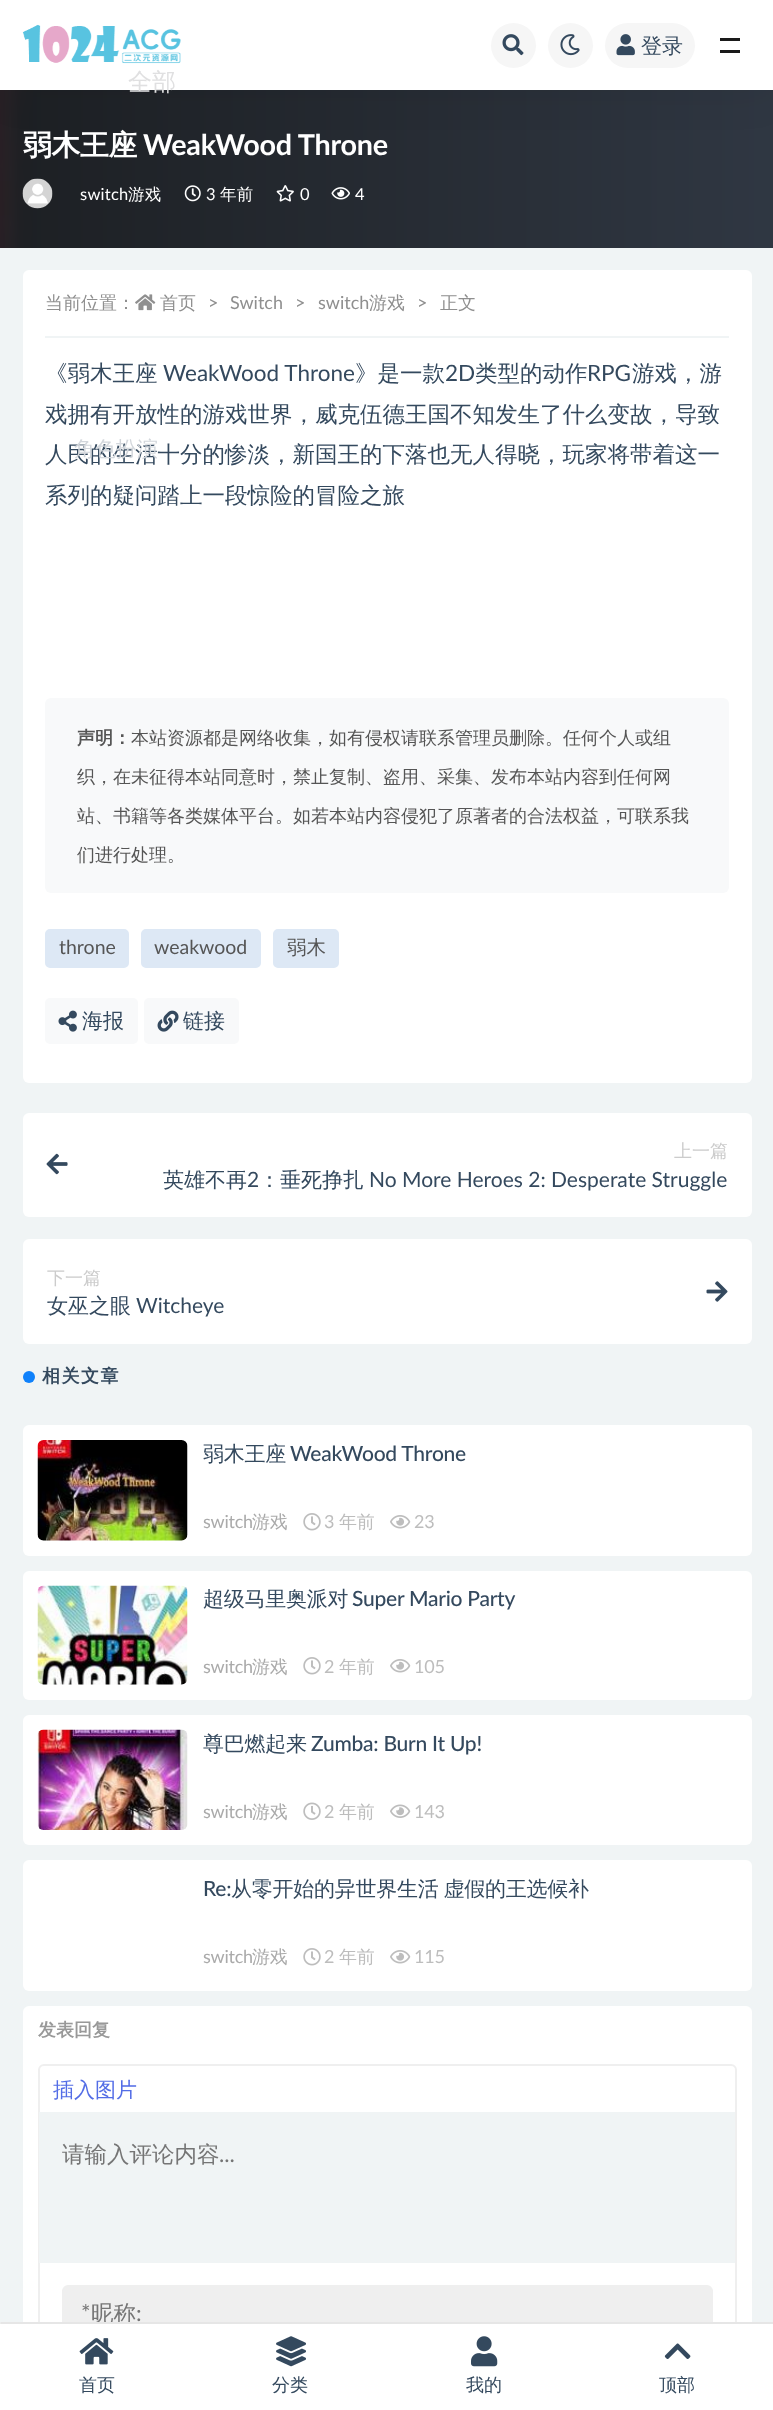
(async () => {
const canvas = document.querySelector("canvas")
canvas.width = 773
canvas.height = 2410
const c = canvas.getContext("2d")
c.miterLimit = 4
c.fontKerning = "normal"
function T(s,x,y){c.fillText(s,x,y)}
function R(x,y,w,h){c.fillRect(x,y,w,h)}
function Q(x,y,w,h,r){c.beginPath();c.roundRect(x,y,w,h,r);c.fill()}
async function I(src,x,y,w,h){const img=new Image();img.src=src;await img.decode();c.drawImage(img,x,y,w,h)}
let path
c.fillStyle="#f0f4f5"
R(0,0,773,2410)
await I("5.png",0,90,773,158)
c.fillStyle="#00000012"
c.filter="blur(22.5px)"
c.beginPath()
c.rect(0,0,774,90)
c.fill()
c.filter="none"
c.fillStyle="#fff"
R(0,0,773,90)
await I("1.png",22,24,159,40)
c.fillStyle="#f6f6f6"
c.beginPath()
c.arc(513.5,45.5,22.5,0,7)
c.fill()
await I("2.png",502,34,22,22)
c.beginPath()
c.arc(570.5,45.5,22.5,0,7)
c.fill()
await I("3.png",560,34,20,22)
Q(605,23,90,45,22.5)
await I("4.png",616,34,19,22)
c.font="500 21px WenQuanYi Zen Hei"
c.fillStyle="#34495e"
T("登录",641,53)
c.fillStyle="#1a1a1a"
R(720,38,20,3)
R(720,50,20,3)
c.letterSpacing="-0.25px"
c.font="bold 28.75px WenQuanYi Zen Hei"
c.fillStyle="#fff"
T("弱木王座",23,155)
c.font="bold 28.75px Lato"
T("WeakWood Throne",143,155)
await I("6.png",22,178,31,31)
c.letterSpacing="0.25px"
c.font="16.5px Lato"
T("switch",80,200)
c.font="500 16.5px WenQuanYi Zen Hei"
T("游戏",128,200)
await I("7.png",184,185,17,17)
c.font="16.5px Lato"
T("3",206,200)
c.font="500 16.5px WenQuanYi Zen Hei"
T("年前",220,200)
await I("8.png",276,185,18,17)
c.font="16.5px Lato"
T("0",300,200)
await I("9.png",331,187,19,13)
T("4",355,200)
Q(23,270,729,813,6)
c.fillStyle="#f0f4f5"
R(45,336,684,2)
c.letterSpacing="0px"
c.font="500 18px WenQuanYi Zen Hei"
c.fillStyle="#8f8f8f"
T("当前位置：",45,309)
await I("10.png",135,294,21,17)
T("首页",160,309)
c.font="18px Lato"
T(">",208,309)
T("Switch",230,309)
T(">",295,309)
T("switch",318,309)
c.font="500 18px WenQuanYi Zen Hei"
T("游戏",369,309)
c.font="18px Lato"
T(">",417,309)
c.font="500 18px WenQuanYi Zen Hei"
T("正文",440,309)
c.font="500 22.5px WenQuanYi Zen Hei"
c.fillStyle="#34495e"
T("《弱木王座",45,381)
c.font="22.5px Lato"
T("WeakWood Throne",163,381)
c.font="500 22.5px WenQuanYi Zen Hei"
T("》是一款",355,381)
c.font="22.5px Lato"
T("2D",445,381)
c.font="500 22.5px WenQuanYi Zen Hei"
T("类型的动作",475,381)
c.font="22.5px Lato"
T("RPG",587,381)
c.font="500 22.5px WenQuanYi Zen Hei"
T("游戏，游",632,381)
T("戏拥有开放性的游戏世界，威克伍德王国不知发生了什么变故，导致",45,422)
T("人民的生活十分的惨淡，新国王的下落也无人得晓，玩家将带着这一",45,462)
T("系列的疑问踏上一段惊险的冒险之旅",45,503)
c.fillStyle="#f8f9fa"
Q(45,698,684,195,6)
c.font="bold 18px WenQuanYi Zen Hei"
c.fillStyle="#555"
T("声明：",77,744)
c.font="500 18px WenQuanYi Zen Hei"
T("本站资源都是网络收集，如有侵权请联系管理员删除。任何个人或组",131,744)
T("织，在未征得本站同意时，禁止复制、盗用、采集、发布本站内容到任何网",77,783)
T("站、书籍等各类媒体平台。如若本站内容侵犯了原著者的合法权益，可联系我",77,822)
T("们进行处理。",77,861)
c.fillStyle="#dde8f5"
c.beginPath()
c.roundRect(46,930,82,37,4)
c.fill()
c.strokeStyle="#dde8f5"
c.lineWidth=2
c.stroke()
c.font="19.5px Lato"
c.fillStyle="#555"
T("throne",59,954)
c.fillStyle="#dde8f5"
c.beginPath()
c.roundRect(142,930,118,37,4)
c.fill()
c.stroke()
c.fillStyle="#555"
T("weakwood",154,954)
c.fillStyle="#dde8f5"
c.beginPath()
c.roundRect(274,930,64,37,4)
c.fill()
c.stroke()
c.font="500 19.5px WenQuanYi Zen Hei"
c.fillStyle="#555"
T("弱木",287,954)
c.fillStyle="#f8f9fa"
Q(45,998,93,46,5)
await I("11.png",58,1010,19,22)
c.font="500 21px WenQuanYi Zen Hei"
c.fillStyle="#34495e"
T("海报",82,1028)
c.fillStyle="#f8f9fa"
Q(144,998,95,46,5)
await I("12.png",157,1010,22,22)
c.fillStyle="#34495e"
T("链接",183,1028)
c.fillStyle="#fff"
Q(23,1113,729,104,6)
await I("13.png",46,1153,22,22)
c.font="500 18px WenQuanYi Zen Hei"
c.fillStyle="#ccc"
T("上一篇",674,1157)
c.font="500 21px WenQuanYi Zen Hei"
c.fillStyle="#34495e"
T("英雄不再",163,1187)
c.font="21px Lato"
T("2",247,1187)
c.font="500 21px WenQuanYi Zen Hei"
T("：垂死挣扎",259,1187)
c.font="21px Lato"
T("No More Heroes 2: Desperate Struggle",369,1187)
c.fillStyle="#fff"
Q(23,1239,729,105,6)
c.font="500 18px WenQuanYi Zen Hei"
c.fillStyle="#ccc"
T("下一篇",47,1284)
c.font="500 21px WenQuanYi Zen Hei"
c.fillStyle="#34495e"
T("女巫之眼",47,1313)
c.font="21px Lato"
T("Witcheye",136,1313)
await I("14.png",706,1281,22,21)
c.fillStyle="#0f81fb"
c.beginPath()
c.arc(29,1377,6,0,7)
c.fill()
c.letterSpacing="1.5px"
c.font="bold 18px WenQuanYi Zen Hei"
c.fillStyle="#34495e"
T("相关文章",42,1382)
c.fillStyle="#fff"
Q(23,1425,729,131,6)
await I("15.png",37,1440,151,101)
c.letterSpacing="-0.25px"
c.font="500 21px WenQuanYi Zen Hei"
c.fillStyle="#34495e"
T("弱木王座",203,1461)
c.font="500 21px Lato"
T("WeakWood Throne",290,1461)
c.font="18px Lato"
c.fillStyle="#aaa"
T("switch",203,1528)
c.font="500 18px WenQuanYi Zen Hei"
T("游戏",252,1528)
await I("16.png",303,1513,18,18)
c.font="18px Lato"
c.fillStyle="#bdbdbd"
T("3",324,1528)
c.font="500 18px WenQuanYi Zen Hei"
T("年前",339,1528)
await I("17.png",390,1515,21,14)
c.font="18px Lato"
T("23",414,1528)
c.fillStyle="#fff"
Q(23,1571,729,129,6)
await I("18.png",37,1585,151,100)
c.font="500 21px WenQuanYi Zen Hei"
c.fillStyle="#34495e"
T("超级马里奥派对",203,1606)
c.font="500 21px Lato"
T("Super Mario Party",352,1606)
c.font="18px Lato"
c.fillStyle="#aaa"
T("switch",203,1673)
c.font="500 18px WenQuanYi Zen Hei"
T("游戏",252,1673)
await I("16.png",303,1657,18,18)
c.font="18px Lato"
c.fillStyle="#bdbdbd"
T("2",324,1673)
c.font="500 18px WenQuanYi Zen Hei"
T("年前",339,1673)
await I("17.png",390,1659,21,14)
c.font="18px Lato"
T("105",414,1673)
c.fillStyle="#fff"
Q(23,1715,729,130,6)
await I("19.png",37,1729,151,101)
c.font="500 21px WenQuanYi Zen Hei"
c.fillStyle="#34495e"
T("尊巴燃起来",203,1751)
c.font="500 21px Lato"
T("Zumba: Burn It Up!",311,1751)
c.font="18px Lato"
c.fillStyle="#aaa"
T("switch",203,1818)
c.font="500 18px WenQuanYi Zen Hei"
T("游戏",252,1818)
await I("20.png",303,1802,18,18)
c.font="18px Lato"
c.fillStyle="#bdbdbd"
T("2",324,1818)
c.font="500 18px WenQuanYi Zen Hei"
T("年前",339,1818)
await I("21.png",390,1804,21,14)
c.font="18px Lato"
T("143",414,1818)
c.fillStyle="#fff"
Q(23,1860,729,131,6)
c.font="500 21px Lato"
c.fillStyle="#34495e"
T("Re:",203,1896)
c.wordSpacing="-1px"
c.font="500 21px WenQuanYi Zen Hei"
T("从零开始的异世界生活 虚假的王选候补",231,1896)
c.wordSpacing="0px"
c.font="18px Lato"
c.fillStyle="#aaa"
T("switch",203,1963)
c.font="500 18px WenQuanYi Zen Hei"
T("游戏",252,1963)
await I("16.png",303,1948,18,18)
c.font="18px Lato"
c.fillStyle="#bdbdbd"
T("2",324,1963)
c.font="500 18px WenQuanYi Zen Hei"
T("年前",339,1963)
await I("17.png",390,1950,21,14)
c.font="18px Lato"
T("115",414,1963)
c.fillStyle="#fff"
Q(23,2006,729,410,6)
c.letterSpacing="0px"
c.font="bold 18px WenQuanYi Zen Hei"
c.fillStyle="#999"
T("发表回复",38,2036)
c.beginPath()
c.roundRect(39,2065,697,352,5)
c.strokeStyle="#efefef"
c.stroke()
c.font="500 21px WenQuanYi Zen Hei"
c.fillStyle="#536de6"
T("插入图片",53,2097)
c.fillStyle="#f0f4f5"
R(39,2112,696,151)
c.font="500 22.5px WenQuanYi Zen Hei"
c.fillStyle="#757575"
T("请输入评论内容",62,2162)
c.font="22.5px Lato"
T("...",219,2162)
c.fillStyle="#efefef"
path = new Path2D("M68 2285h639c3 0 6 3 6 6v42c0 3-3 6-6 6h-639c-3 0-6-3-6-6v-42c0-3 3-6 6-6z")
c.fill(path)
c.fillStyle="#757575"
T("*",81,2321)
c.font="500 22.5px WenQuanYi Zen Hei"
T("昵称",91,2321)
c.font="22.5px Lato"
T(":",136,2321)
c.font="500 24px WenQuanYi Zen Hei"
c.fillStyle="#e0e0e1"
T("全部",128,90)
c.font="500 21px WenQuanYi Zen Hei"
c.fillStyle="#d3d7dc"
T("角色扮演",74,456)
c.fillStyle="#fff"
R(0,2322,773,88)
c.fillStyle="#e6e6e6"
Q(0,2322,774,2,1)
await I("22.png",79,2338,35,27)
c.font="500 18px WenQuanYi Zen Hei"
c.fillStyle="#34495e"
T("首页",79,2391)
await I("23.png",276,2336,30,31)
T("分类",272,2391)
await I("24.png",471,2336,27,31)
T("我的",466,2391)
await I("25.png",664,2343,27,16)
T("顶部",659,2391)
})()
